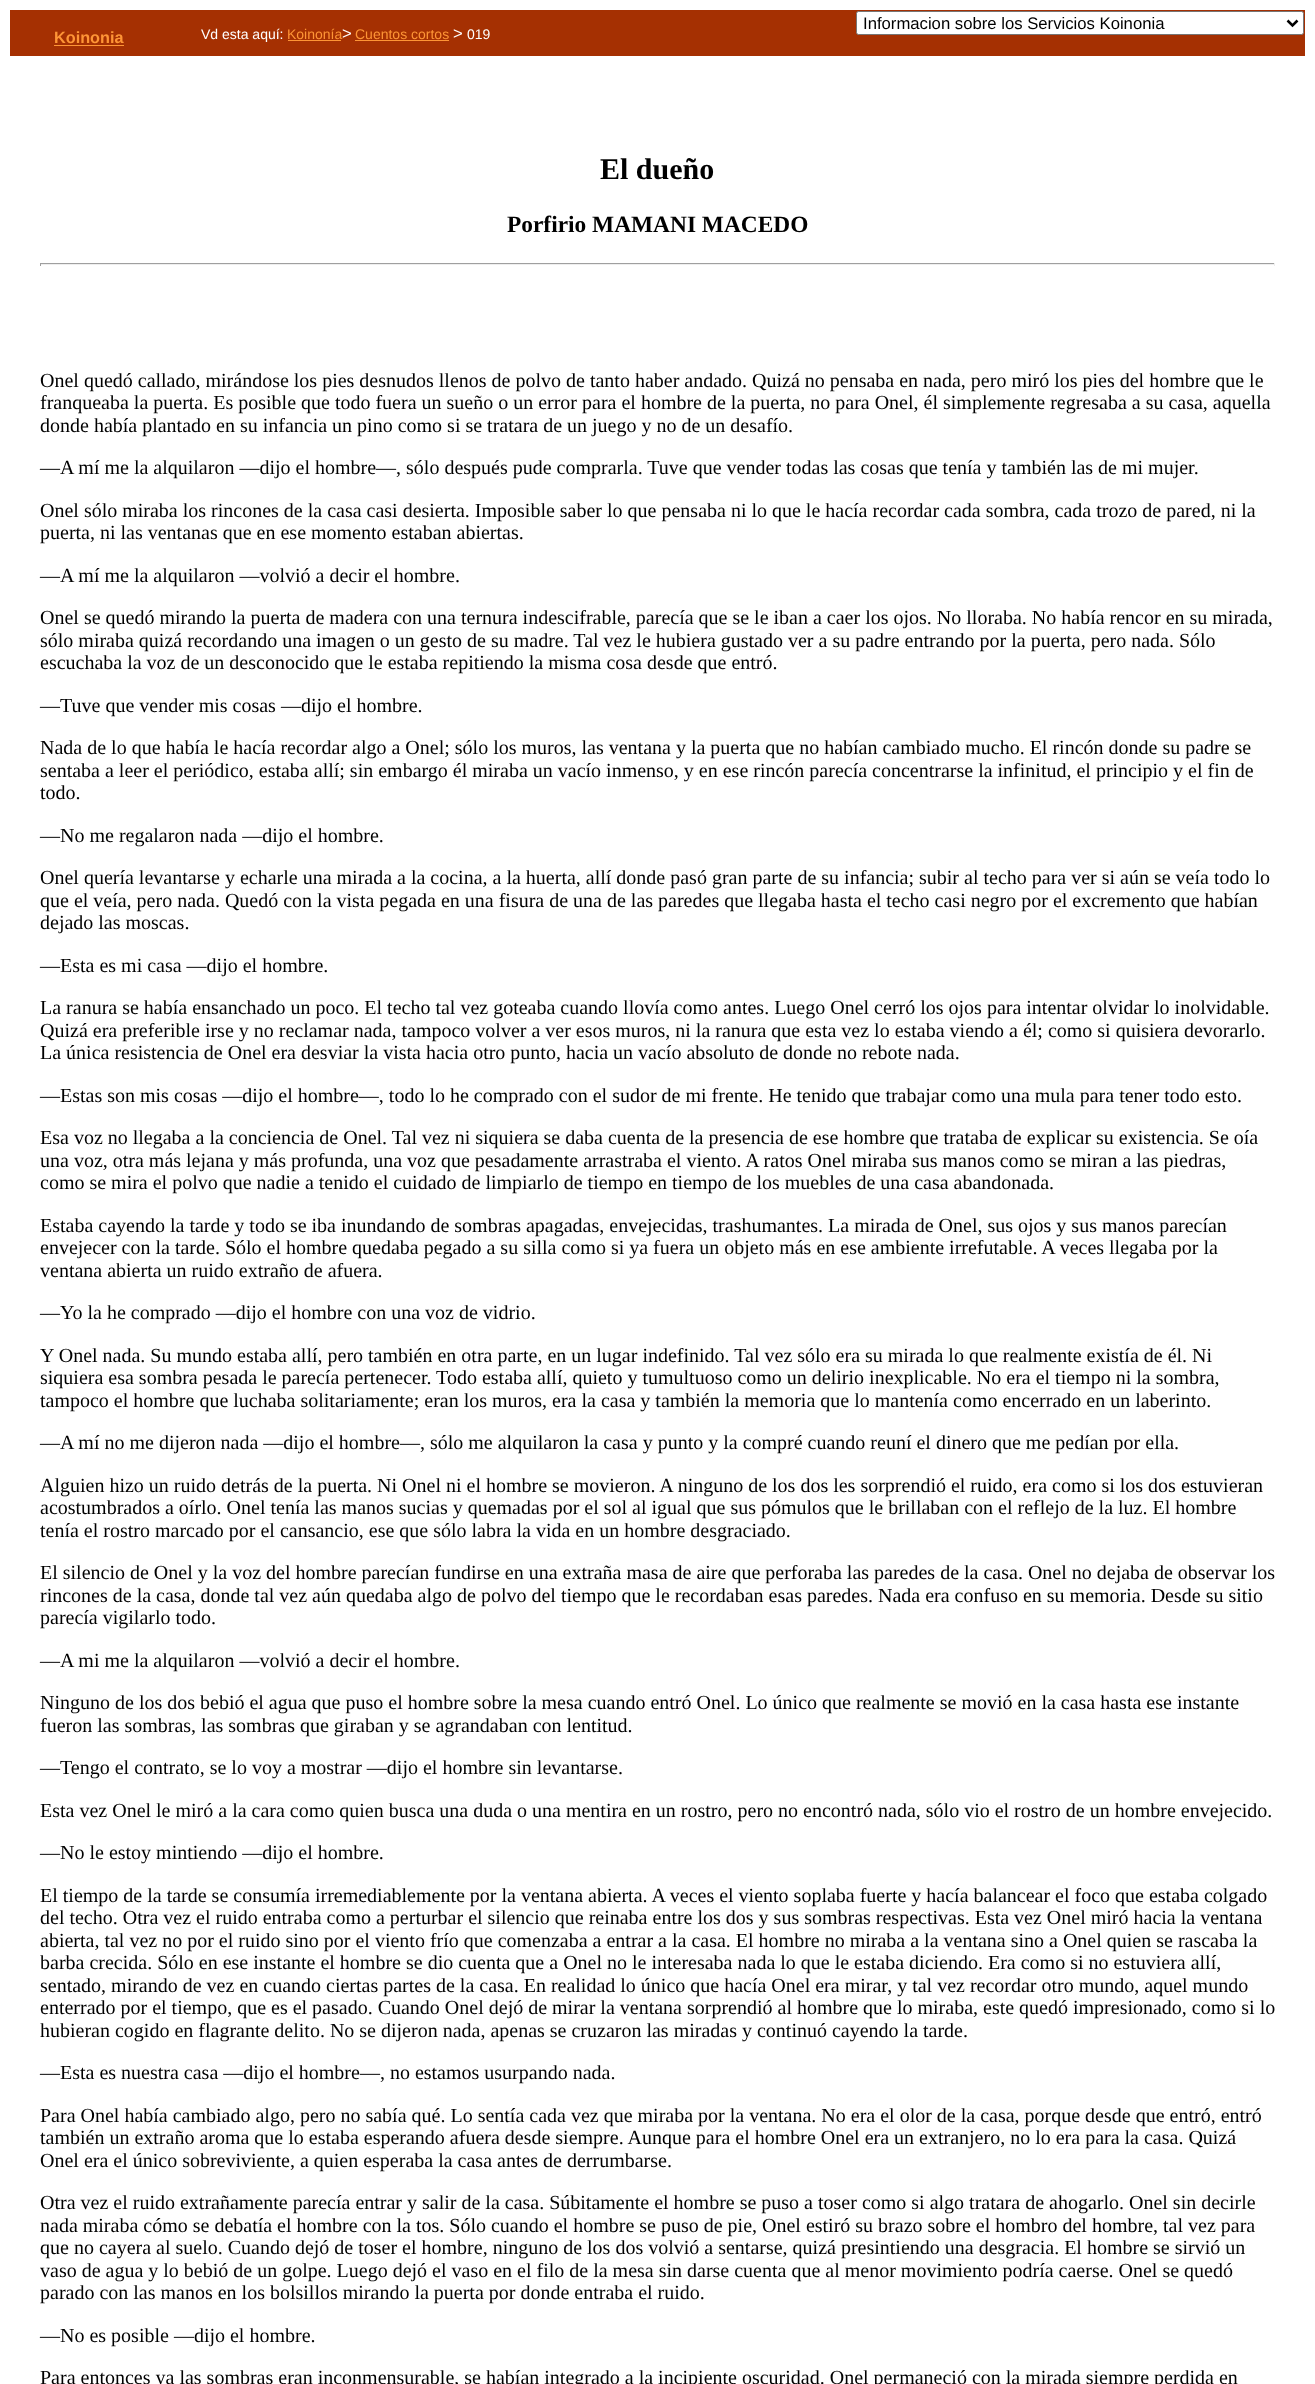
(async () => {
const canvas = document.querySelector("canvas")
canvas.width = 1315
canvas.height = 2384
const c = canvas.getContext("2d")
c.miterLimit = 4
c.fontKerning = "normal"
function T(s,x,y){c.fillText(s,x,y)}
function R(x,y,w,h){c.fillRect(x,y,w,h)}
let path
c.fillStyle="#fff"
R(0,0,1315,2384)
c.fillStyle="#a53002"
R(10,10,1295,46)
c.fillStyle="#fff"
c.beginPath()
c.roundRect(856.5,11.5,447,23,2)
c.fill()
c.strokeStyle="#767676"
c.stroke()
path = new Path2D("M1287.5 20.5l5 5l5-5")
c.strokeStyle="#000"
c.lineWidth=2.5
c.stroke(path)
c.font="16.7px Liberation Sans"
c.fillStyle="#000"
T("Informacion sobre los Servicios Koinonia",863,29)
c.font="bold 16.25px Liberation Sans"
c.fillStyle="#fe9536"
T("Koinonia",54,43)
R(54,45,70,1)
c.font="14px Liberation Sans"
c.fillStyle="#fff"
T("Vd esta aquí:",201,39)
c.fillStyle="#fe9536"
T("Koinonía",287,39)
R(288,40,53,1)
c.font="16.7px Liberation Sans"
c.fillStyle="#fff"
T(">",342,39)
c.font="14px Liberation Sans"
c.fillStyle="#fe9536"
T("Cuentos cortos",355,39)
R(355,40,94,1)
c.font="16.7px Liberation Sans"
c.fillStyle="#fff"
T(">",453,39)
c.font="14px Liberation Sans"
T("019",467,39)
c.font="bold 30px Liberation Serif"
c.fillStyle="#000"
T("El dueño",600,179)
c.font="bold 23.4px Liberation Serif"
T("Porfirio MAMANI MACEDO",507,232)
c.fillStyle="#9f9f9f"
R(40,263,1235,1)
c.fillStyle="#eee"
R(1274,263,1,3)
R(40,264,1235,1)
c.fillStyle="#9f9f9f"
R(40,263,1,3)
c.font="20px Liberation Serif"
c.fillStyle="#000"
T("Onel quedó callado, mirándose los pies desnudos llenos de polvo de tanto haber andado. Quizá no pensaba en nada, pero miró los pies del hombre que le",40,387)
T("franqueaba la puerta. Es posible que todo fuera un sueño o un error para el hombre de la puerta, no para Onel, él simplemente regresaba a su casa, aquella",40,409)
T("donde había plantado en su infancia un pino como si se tratara de un juego y no de un desafío.",40,432)
T("—A mí me la alquilaron —dijo el hombre—, sólo después pude comprarla. Tuve que vender todas las cosas que tenía y también las de mi mujer.",40,474)
T("Onel sólo miraba los rincones de la casa casi desierta. Imposible saber lo que pensaba ni lo que le hacía recordar cada sombra, cada trozo de pared, ni la",40,517)
T("puerta, ni las ventanas que en ese momento estaban abiertas.",40,539)
T("—A mí me la alquilaron —volvió a decir el hombre.",40,582)
T("Onel se quedó mirando la puerta de madera con una ternura indescifrable, parecía que se le iban a caer los ojos. No lloraba. No había rencor en su mirada,",40,624)
T("sólo miraba quizá recordando una imagen o un gesto de su madre. Tal vez le hubiera gustado ver a su padre entrando por la puerta, pero nada. Sólo",40,647)
T("escuchaba la voz de un desconocido que le estaba repitiendo la misma cosa desde que entró.",40,669)
T("—Tuve que vender mis cosas —dijo el hombre.",40,712)
T("Nada de lo que había le hacía recordar algo a Onel; sólo los muros, las ventana y la puerta que no habían cambiado mucho. El rincón donde su padre se",40,754)
T("sentaba a leer el periódico, estaba allí; sin embargo él miraba un vacío inmenso, y en ese rincón parecía concentrarse la infinitud, el principio y el fin de",40,777)
T("todo.",40,799)
T("—No me regalaron nada —dijo el hombre.",40,842)
T("Onel quería levantarse y echarle una mirada a la cocina, a la huerta, allí donde pasó gran parte de su infancia; subir al techo para ver si aún se veía todo lo",40,884)
T("que el veía, pero nada. Quedó con la vista pegada en una fisura de una de las paredes que llegaba hasta el techo casi negro por el excremento que habían",40,907)
T("dejado las moscas.",40,929)
T("—Esta es mi casa —dijo el hombre.",40,972)
T("La ranura se había ensanchado un poco. El techo tal vez goteaba cuando llovía como antes. Luego Onel cerró los ojos para intentar olvidar lo inolvidable.",40,1014)
T("Quizá era preferible irse y no reclamar nada, tampoco volver a ver esos muros, ni la ranura que esta vez lo estaba viendo a él; como si quisiera devorarlo.",40,1037)
T("La única resistencia de Onel era desviar la vista hacia otro punto, hacia un vacío absoluto de donde no rebote nada.",40,1059)
T("—Estas son mis cosas —dijo el hombre—, todo lo he comprado con el sudor de mi frente. He tenido que trabajar como una mula para tener todo esto.",40,1102)
T("Esa voz no llegaba a la conciencia de Onel. Tal vez ni siquiera se daba cuenta de la presencia de ese hombre que trataba de explicar su existencia. Se oía",40,1144)
T("una voz, otra más lejana y más profunda, una voz que pesadamente arrastraba el viento. A ratos Onel miraba sus manos como se miran a las piedras,",40,1167)
T("como se mira el polvo que nadie a tenido el cuidado de limpiarlo de tiempo en tiempo de los muebles de una casa abandonada.",40,1189)
T("Estaba cayendo la tarde y todo se iba inundando de sombras apagadas, envejecidas, trashumantes. La mirada de Onel, sus ojos y sus manos parecían",40,1232)
T("envejecer con la tarde. Sólo el hombre quedaba pegado a su silla como si ya fuera un objeto más en ese ambiente irrefutable. A veces llegaba por la",40,1254)
T("ventana abierta un ruido extraño de afuera.",40,1277)
T("—Yo la he comprado —dijo el hombre con una voz de vidrio.",40,1319)
T("Y Onel nada. Su mundo estaba allí, pero también en otra parte, en un lugar indefinido. Tal vez sólo era su mirada lo que realmente existía de él. Ni",40,1362)
T("siquiera esa sombra pesada le parecía pertenecer. Todo estaba allí, quieto y tumultuoso como un delirio inexplicable. No era el tiempo ni la sombra,",40,1384)
T("tampoco el hombre que luchaba solitariamente; eran los muros, era la casa y también la memoria que lo mantenía como encerrado en un laberinto.",40,1407)
T("—A mí no me dijeron nada —dijo el hombre—, sólo me alquilaron la casa y punto y la compré cuando reuní el dinero que me pedían por ella.",40,1449)
T("Alguien hizo un ruido detrás de la puerta. Ni Onel ni el hombre se movieron. A ninguno de los dos les sorprendió el ruido, era como si los dos estuvieran",40,1492)
T("acostumbrados a oírlo. Onel tenía las manos sucias y quemadas por el sol al igual que sus pómulos que le brillaban con el reflejo de la luz. El hombre",40,1514)
T("tenía el rostro marcado por el cansancio, ese que sólo labra la vida en un hombre desgraciado.",40,1537)
T("El silencio de Onel y la voz del hombre parecían fundirse en una extraña masa de aire que perforaba las paredes de la casa. Onel no dejaba de observar los",40,1579)
T("rincones de la casa, donde tal vez aún quedaba algo de polvo del tiempo que le recordaban esas paredes. Nada era confuso en su memoria. Desde su sitio",40,1602)
T("parecía vigilarlo todo.",40,1624)
T("—A mi me la alquilaron —volvió a decir el hombre.",40,1667)
T("Ninguno de los dos bebió el agua que puso el hombre sobre la mesa cuando entró Onel. Lo único que realmente se movió en la casa hasta ese instante",40,1709)
T("fueron las sombras, las sombras que giraban y se agrandaban con lentitud.",40,1732)
T("—Tengo el contrato, se lo voy a mostrar —dijo el hombre sin levantarse.",40,1774)
T("Esta vez Onel le miró a la cara como quien busca una duda o una mentira en un rostro, pero no encontró nada, sólo vio el rostro de un hombre envejecido.",40,1817)
T("—No le estoy mintiendo —dijo el hombre.",40,1859)
T("El tiempo de la tarde se consumía irremediablemente por la ventana abierta. A veces el viento soplaba fuerte y hacía balancear el foco que estaba colgado",40,1902)
T("del techo. Otra vez el ruido entraba como a perturbar el silencio que reinaba entre los dos y sus sombras respectivas. Esta vez Onel miró hacia la ventana",40,1924)
T("abierta, tal vez no por el ruido sino por el viento frío que comenzaba a entrar a la casa. El hombre no miraba a la ventana sino a Onel quien se rascaba la",40,1947)
T("barba crecida. Sólo en ese instante el hombre se dio cuenta que a Onel no le interesaba nada lo que le estaba diciendo. Era como si no estuviera allí,",40,1969)
T("sentado, mirando de vez en cuando ciertas partes de la casa. En realidad lo único que hacía Onel era mirar, y tal vez recordar otro mundo, aquel mundo",40,1992)
T("enterrado por el tiempo, que es el pasado. Cuando Onel dejó de mirar la ventana sorprendió al hombre que lo miraba, este quedó impresionado, como si lo",40,2014)
T("hubieran cogido en flagrante delito. No se dijeron nada, apenas se cruzaron las miradas y continuó cayendo la tarde.",40,2037)
T("—Esta es nuestra casa —dijo el hombre—, no estamos usurpando nada.",40,2079)
T("Para Onel había cambiado algo, pero no sabía qué. Lo sentía cada vez que miraba por la ventana. No era el olor de la casa, porque desde que entró, entró",40,2122)
T("también un extraño aroma que lo estaba esperando afuera desde siempre. Aunque para el hombre Onel era un extranjero, no lo era para la casa. Quizá",40,2144)
T("Onel era el único sobreviviente, a quien esperaba la casa antes de derrumbarse.",40,2167)
T("Otra vez el ruido extrañamente parecía entrar y salir de la casa. Súbitamente el hombre se puso a toser como si algo tratara de ahogarlo. Onel sin decirle",40,2209)
T("nada miraba cómo se debatía el hombre con la tos. Sólo cuando el hombre se puso de pie, Onel estiró su brazo sobre el hombro del hombre, tal vez para",40,2232)
T("que no cayera al suelo. Cuando dejó de toser el hombre, ninguno de los dos volvió a sentarse, quizá presintiendo una desgracia. El hombre se sirvió un",40,2254)
T("vaso de agua y lo bebió de un golpe. Luego dejó el vaso en el filo de la mesa sin darse cuenta que al menor movimiento podría caerse. Onel se quedó",40,2277)
T("parado con las manos en los bolsillos mirando la puerta por donde entraba el ruido.",40,2299)
T("—No es posible —dijo el hombre.",40,2342)
T("Para entonces ya las sombras eran inconmensurable, se habían integrado a la incipiente oscuridad. Onel permaneció con la mirada siempre perdida en",40,2384)
})()
